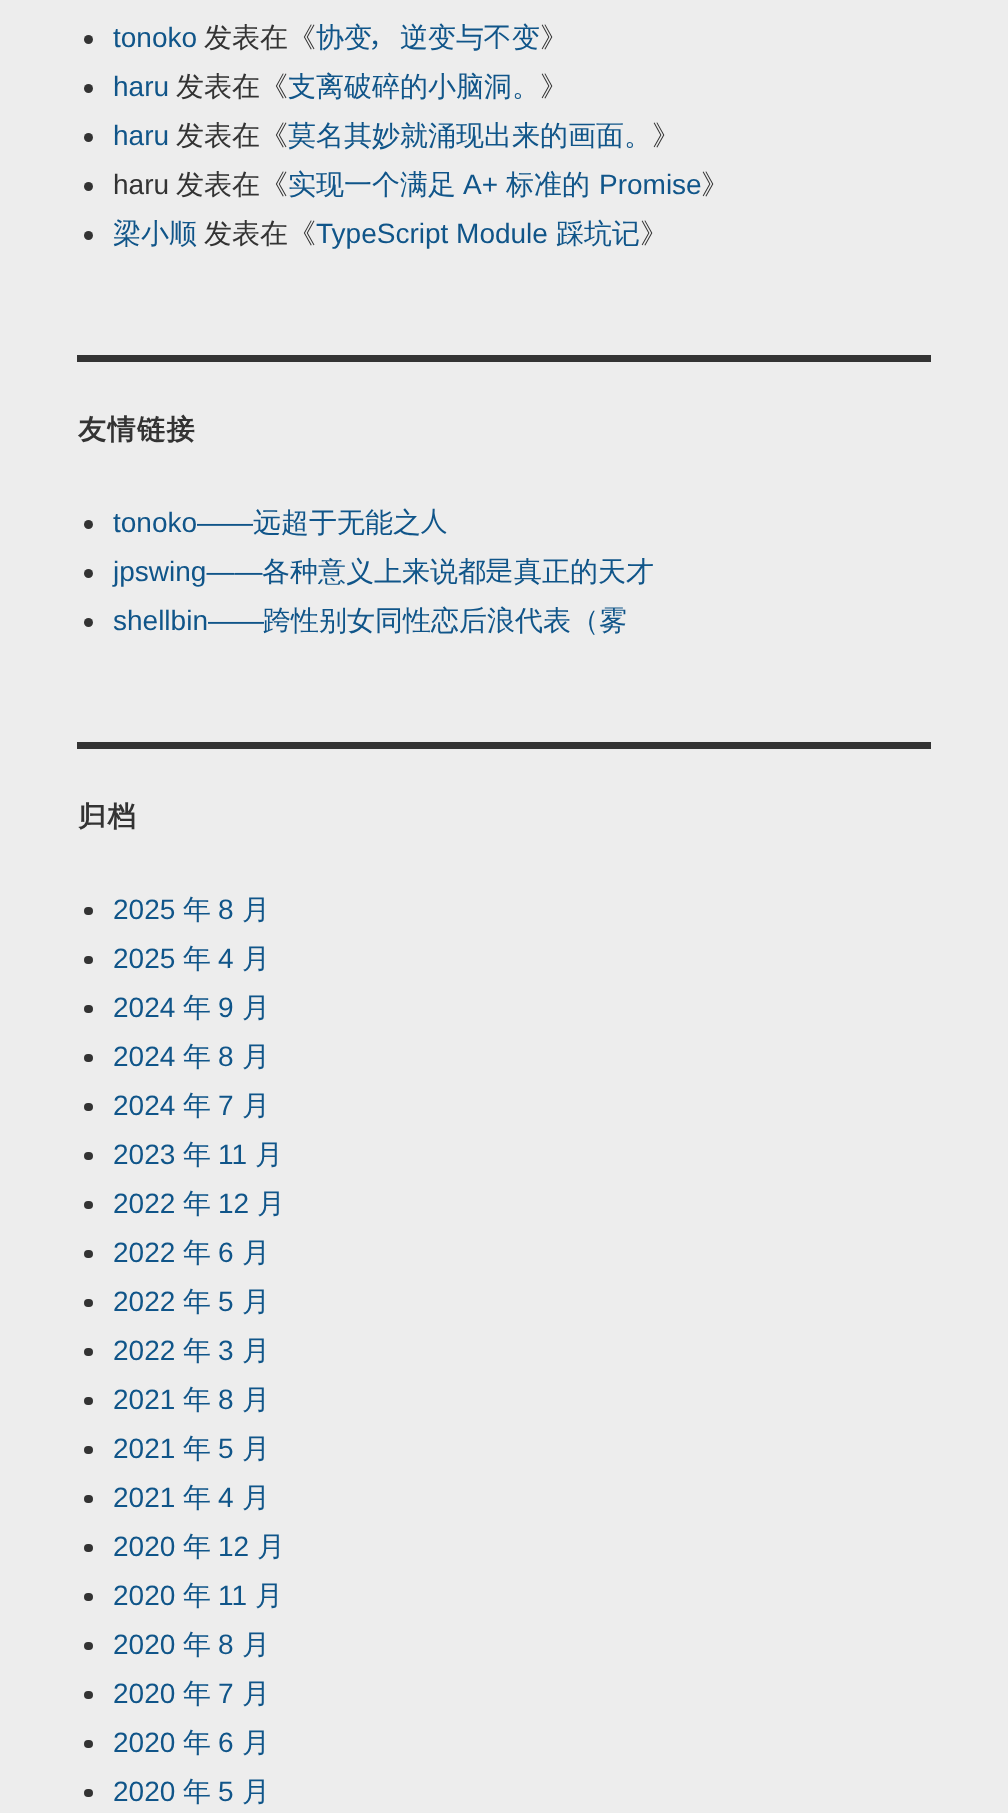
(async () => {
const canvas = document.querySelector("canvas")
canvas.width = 1008
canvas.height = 1813
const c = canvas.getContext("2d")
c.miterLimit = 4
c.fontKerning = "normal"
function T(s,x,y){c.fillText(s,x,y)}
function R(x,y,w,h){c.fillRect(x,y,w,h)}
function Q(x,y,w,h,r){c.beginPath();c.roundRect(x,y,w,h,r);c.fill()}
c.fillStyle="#ededed"
R(0,0,1008,1813)
c.fillStyle="#333"
c.beginPath()
c.arc(88.5,39.5,4.5,0,7)
c.fill()
c.font="28px Liberation Sans"
c.fillStyle="#105589"
T("tonoko",113,47)
c.font="500 28px WenQuanYi Zen Hei"
c.fillStyle="#333"
T("发表在《",204,47)
c.fillStyle="#105589"
T("协变",316,47)
c.font="300 28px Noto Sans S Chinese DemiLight"
T("，",372,47)
c.font="500 28px WenQuanYi Zen Hei"
T("逆变与",400,47)
c.font="300 28px Noto Sans S Chinese DemiLight"
T("不",484,47)
c.font="500 28px WenQuanYi Zen Hei"
T("变",512,47)
c.fillStyle="#333"
T("》",540,47)
c.beginPath()
c.arc(88.5,88.5,4.5,0,7)
c.fill()
c.font="28px Liberation Sans"
c.fillStyle="#105589"
T("haru",113,96)
c.font="500 28px WenQuanYi Zen Hei"
c.fillStyle="#333"
T("发表在《",176,96)
c.fillStyle="#105589"
T("支离破碎的小脑洞。",288,96)
c.fillStyle="#333"
T("》",540,96)
c.beginPath()
c.arc(88.5,137.5,4.5,0,7)
c.fill()
c.font="28px Liberation Sans"
c.fillStyle="#105589"
T("haru",113,145)
c.font="500 28px WenQuanYi Zen Hei"
c.fillStyle="#333"
T("发表在《",176,145)
c.fillStyle="#105589"
T("莫名其妙就涌现出来的画面。",288,145)
c.fillStyle="#333"
T("》",652,145)
c.beginPath()
c.arc(88.5,186.5,4.5,0,7)
c.fill()
c.font="28px Liberation Sans"
T("haru",113,194)
c.font="500 28px WenQuanYi Zen Hei"
T("发表在《",176,194)
c.fillStyle="#105589"
T("实现一个满足",288,194)
c.font="28px Liberation Sans"
T("A+",463,194)
c.font="500 28px WenQuanYi Zen Hei"
T("标准的",506,194)
c.font="28px Liberation Sans"
T("Promise",599,194)
c.font="500 28px WenQuanYi Zen Hei"
c.fillStyle="#333"
T("》",701,194)
c.beginPath()
c.arc(88.5,235.5,4.5,0,7)
c.fill()
c.fillStyle="#105589"
T("梁小顺",113,243)
c.fillStyle="#333"
T("发表在《",204,243)
c.font="28px Liberation Sans"
c.fillStyle="#105589"
T("TypeScript Module",316,243)
c.font="500 28px WenQuanYi Zen Hei"
T("踩坑记",556,243)
c.fillStyle="#333"
T("》",640,243)
R(77,355,854,7)
c.letterSpacing="1.5px"
c.font="bold 28px WenQuanYi Zen Hei"
T("友情链接",78,439)
c.beginPath()
c.arc(88.5,524.5,4.5,0,7)
c.fill()
c.letterSpacing="0px"
c.font="28px Liberation Sans"
c.fillStyle="#105589"
T("tonoko——",113,532)
c.font="500 28px WenQuanYi Zen Hei"
T("远超于无能之",253,532)
c.font="300 28px Noto Sans S Chinese DemiLight"
T("人",421,532)
c.fillStyle="#333"
c.beginPath()
c.arc(88.5,573.5,4.5,0,7)
c.fill()
c.font="28px Liberation Sans"
c.fillStyle="#105589"
T("jpswing——",113,581)
c.font="500 28px WenQuanYi Zen Hei"
T("各种意义上来说都",262,581)
c.font="300 28px Noto Sans S Chinese DemiLight"
T("是",486,581)
c.font="500 28px WenQuanYi Zen Hei"
T("真正的天才",514,581)
c.fillStyle="#333"
c.beginPath()
c.arc(88.5,622.5,4.5,0,7)
c.fill()
c.font="28px Liberation Sans"
c.fillStyle="#105589"
T("shellbin——",113,630)
c.font="500 28px WenQuanYi Zen Hei"
T("跨性别女同性恋后浪代表（雾",263,630)
c.fillStyle="#333"
R(77,742,854,7)
c.letterSpacing="1.5px"
c.font="bold 28px WenQuanYi Zen Hei"
T("归档",78,826)
Q(84,907,9,8,4)
c.letterSpacing="0px"
c.font="28px Liberation Sans"
c.fillStyle="#105589"
T("2025",113,919)
c.font="500 28px WenQuanYi Zen Hei"
T("年",183,919)
c.font="28px Liberation Sans"
T("8",218,919)
c.font="500 28px WenQuanYi Zen Hei"
T("月",242,919)
c.fillStyle="#333"
Q(84,956,9,8,4)
c.font="28px Liberation Sans"
c.fillStyle="#105589"
T("2025",113,968)
c.font="500 28px WenQuanYi Zen Hei"
T("年",183,968)
c.font="28px Liberation Sans"
T("4",218,968)
c.font="500 28px WenQuanYi Zen Hei"
T("月",242,968)
c.fillStyle="#333"
Q(84,1005,9,8,4)
c.font="28px Liberation Sans"
c.fillStyle="#105589"
T("2024",113,1017)
c.font="500 28px WenQuanYi Zen Hei"
T("年",183,1017)
c.font="28px Liberation Sans"
T("9",218,1017)
c.font="500 28px WenQuanYi Zen Hei"
T("月",242,1017)
c.fillStyle="#333"
Q(84,1054,9,8,4)
c.font="28px Liberation Sans"
c.fillStyle="#105589"
T("2024",113,1066)
c.font="500 28px WenQuanYi Zen Hei"
T("年",183,1066)
c.font="28px Liberation Sans"
T("8",218,1066)
c.font="500 28px WenQuanYi Zen Hei"
T("月",242,1066)
c.fillStyle="#333"
Q(84,1103,9,8,4)
c.font="28px Liberation Sans"
c.fillStyle="#105589"
T("2024",113,1115)
c.font="500 28px WenQuanYi Zen Hei"
T("年",183,1115)
c.font="28px Liberation Sans"
T("7",218,1115)
c.font="500 28px WenQuanYi Zen Hei"
T("月",242,1115)
c.fillStyle="#333"
Q(84,1152,9,8,4)
c.font="28px Liberation Sans"
c.fillStyle="#105589"
T("2023",113,1164)
c.font="500 28px WenQuanYi Zen Hei"
T("年",183,1164)
c.font="28px Liberation Sans"
T("11",218,1164)
c.font="500 28px WenQuanYi Zen Hei"
T("月",255,1164)
c.fillStyle="#333"
Q(84,1201,9,8,4)
c.font="28px Liberation Sans"
c.fillStyle="#105589"
T("2022",113,1213)
c.font="500 28px WenQuanYi Zen Hei"
T("年",183,1213)
c.font="28px Liberation Sans"
T("12",218,1213)
c.font="500 28px WenQuanYi Zen Hei"
T("月",257,1213)
c.fillStyle="#333"
Q(84,1250,9,8,4)
c.font="28px Liberation Sans"
c.fillStyle="#105589"
T("2022",113,1262)
c.font="500 28px WenQuanYi Zen Hei"
T("年",183,1262)
c.font="28px Liberation Sans"
T("6",218,1262)
c.font="500 28px WenQuanYi Zen Hei"
T("月",242,1262)
c.fillStyle="#333"
Q(84,1299,9,8,4)
c.font="28px Liberation Sans"
c.fillStyle="#105589"
T("2022",113,1311)
c.font="500 28px WenQuanYi Zen Hei"
T("年",183,1311)
c.font="28px Liberation Sans"
T("5",218,1311)
c.font="500 28px WenQuanYi Zen Hei"
T("月",242,1311)
c.fillStyle="#333"
Q(84,1348,9,8,4)
c.font="28px Liberation Sans"
c.fillStyle="#105589"
T("2022",113,1360)
c.font="500 28px WenQuanYi Zen Hei"
T("年",183,1360)
c.font="28px Liberation Sans"
T("3",218,1360)
c.font="500 28px WenQuanYi Zen Hei"
T("月",242,1360)
c.fillStyle="#333"
Q(84,1397,9,8,4)
c.font="28px Liberation Sans"
c.fillStyle="#105589"
T("2021",113,1409)
c.font="500 28px WenQuanYi Zen Hei"
T("年",183,1409)
c.font="28px Liberation Sans"
T("8",218,1409)
c.font="500 28px WenQuanYi Zen Hei"
T("月",242,1409)
c.fillStyle="#333"
Q(84,1446,9,8,4)
c.font="28px Liberation Sans"
c.fillStyle="#105589"
T("2021",113,1458)
c.font="500 28px WenQuanYi Zen Hei"
T("年",183,1458)
c.font="28px Liberation Sans"
T("5",218,1458)
c.font="500 28px WenQuanYi Zen Hei"
T("月",242,1458)
c.fillStyle="#333"
Q(84,1495,9,8,4)
c.font="28px Liberation Sans"
c.fillStyle="#105589"
T("2021",113,1507)
c.font="500 28px WenQuanYi Zen Hei"
T("年",183,1507)
c.font="28px Liberation Sans"
T("4",218,1507)
c.font="500 28px WenQuanYi Zen Hei"
T("月",242,1507)
c.fillStyle="#333"
Q(84,1544,9,8,4)
c.font="28px Liberation Sans"
c.fillStyle="#105589"
T("2020",113,1556)
c.font="500 28px WenQuanYi Zen Hei"
T("年",183,1556)
c.font="28px Liberation Sans"
T("12",218,1556)
c.font="500 28px WenQuanYi Zen Hei"
T("月",257,1556)
c.fillStyle="#333"
Q(84,1593,9,8,4)
c.font="28px Liberation Sans"
c.fillStyle="#105589"
T("2020",113,1605)
c.font="500 28px WenQuanYi Zen Hei"
T("年",183,1605)
c.font="28px Liberation Sans"
T("11",218,1605)
c.font="500 28px WenQuanYi Zen Hei"
T("月",255,1605)
c.fillStyle="#333"
Q(84,1642,9,8,4)
c.font="28px Liberation Sans"
c.fillStyle="#105589"
T("2020",113,1654)
c.font="500 28px WenQuanYi Zen Hei"
T("年",183,1654)
c.font="28px Liberation Sans"
T("8",218,1654)
c.font="500 28px WenQuanYi Zen Hei"
T("月",242,1654)
c.fillStyle="#333"
Q(84,1691,9,8,4)
c.font="28px Liberation Sans"
c.fillStyle="#105589"
T("2020",113,1703)
c.font="500 28px WenQuanYi Zen Hei"
T("年",183,1703)
c.font="28px Liberation Sans"
T("7",218,1703)
c.font="500 28px WenQuanYi Zen Hei"
T("月",242,1703)
c.fillStyle="#333"
Q(84,1740,9,8,4)
c.font="28px Liberation Sans"
c.fillStyle="#105589"
T("2020",113,1752)
c.font="500 28px WenQuanYi Zen Hei"
T("年",183,1752)
c.font="28px Liberation Sans"
T("6",218,1752)
c.font="500 28px WenQuanYi Zen Hei"
T("月",242,1752)
c.fillStyle="#333"
Q(84,1789,9,8,4)
c.font="28px Liberation Sans"
c.fillStyle="#105589"
T("2020",113,1801)
c.font="500 28px WenQuanYi Zen Hei"
T("年",183,1801)
c.font="28px Liberation Sans"
T("5",218,1801)
c.font="500 28px WenQuanYi Zen Hei"
T("月",242,1801)
})()
